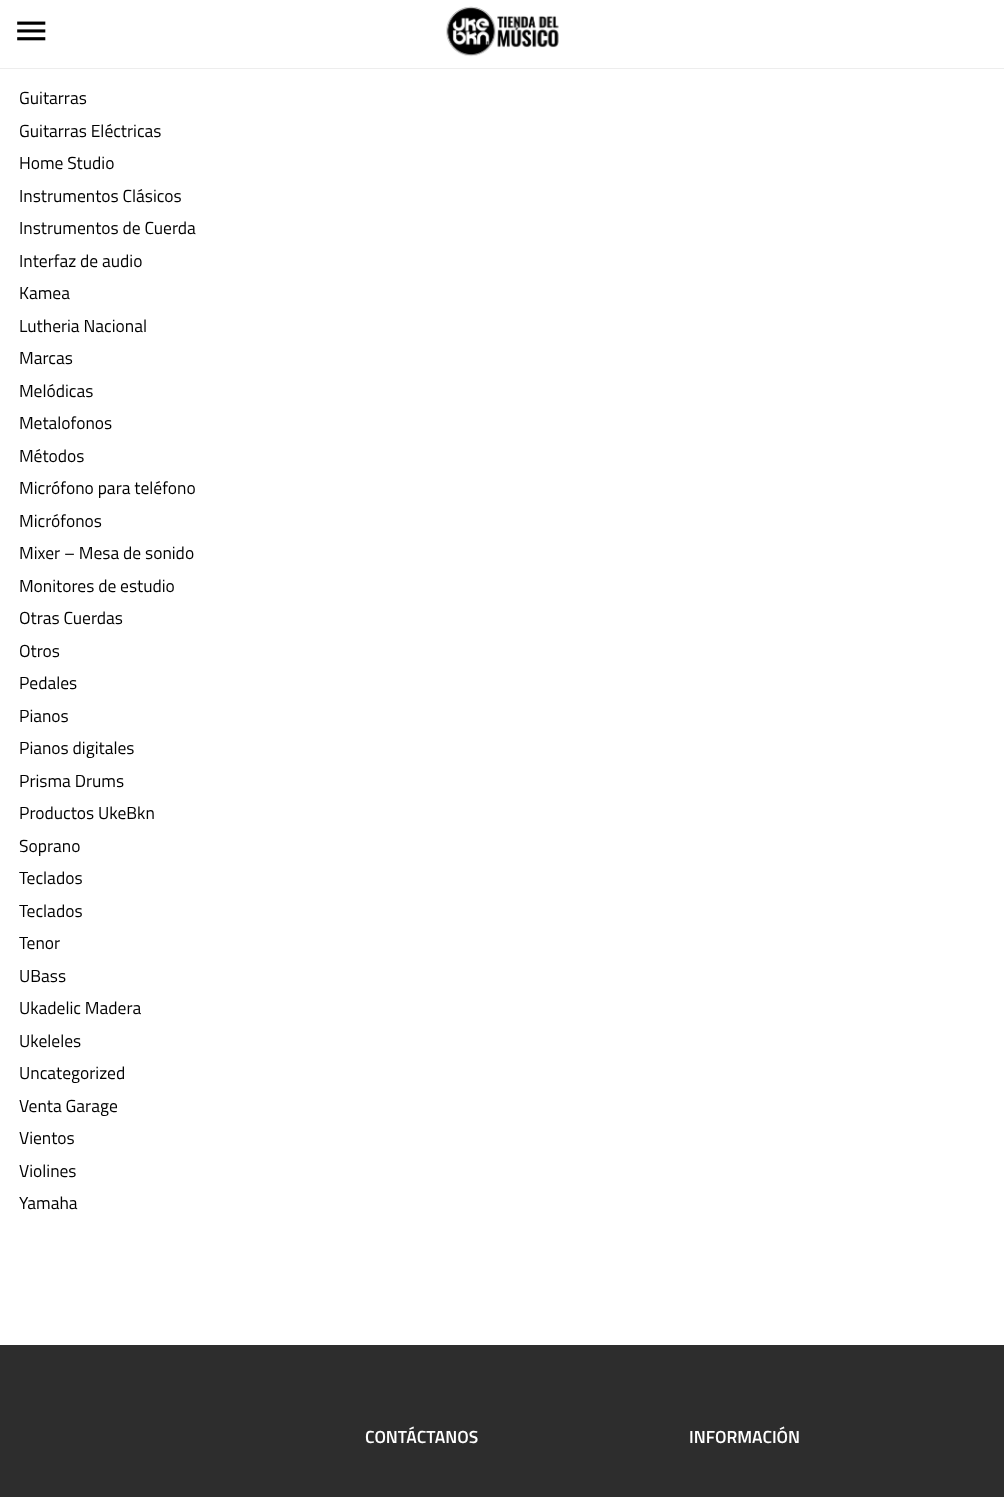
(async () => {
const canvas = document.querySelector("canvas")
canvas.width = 1004
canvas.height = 1497
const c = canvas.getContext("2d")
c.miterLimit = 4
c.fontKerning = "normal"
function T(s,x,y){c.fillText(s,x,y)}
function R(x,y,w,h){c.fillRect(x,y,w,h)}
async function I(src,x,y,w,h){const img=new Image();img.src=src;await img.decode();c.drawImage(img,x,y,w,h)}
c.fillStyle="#fff"
R(0,0,1004,1497)
c.fillStyle="#ededed"
R(0,68,1004,1)
await I("1.png",17,21,29,20)
await I("2.png",446,6,113,51)
c.font="17.5px Titillium Web"
c.fillStyle="#000"
T("Guitarras",19,104)
T("Guitarras Eléctricas",19,137)
T("Home Studio",19,169)
T("Instrumentos Clásicos",19,202)
T("Instrumentos de Cuerda",19,234)
T("Interfaz de audio",19,267)
T("Kamea",19,299)
T("Lutheria Nacional",19,332)
T("Marcas",19,364)
T("Melódicas",19,397)
T("Metalofonos",19,429)
T("Métodos",19,462)
T("Micrófono para teléfono",19,494)
T("Micrófonos",19,527)
T("Mixer – Mesa de sonido",19,559)
T("Monitores de estudio",19,592)
T("Otras Cuerdas",19,624)
T("Otros",19,657)
T("Pedales",19,689)
T("Pianos",19,722)
T("Pianos digitales",19,754)
T("Prisma Drums",19,787)
T("Productos UkeBkn",19,819)
T("Soprano",19,852)
T("Teclados",19,884)
T("Teclados",19,917)
T("Tenor",19,949)
T("UBass",19,982)
T("Ukadelic Madera",19,1014)
T("Ukeleles",19,1047)
T("Uncategorized",19,1079)
T("Venta Garage",19,1112)
T("Vientos",19,1144)
T("Violines",19,1177)
T("Yamaha",19,1209)
c.fillStyle="#2d2d2d"
R(0,1345,1004,152)
c.font="600 17.5px Titillium Web"
c.fillStyle="#fff"
T("CONTÁCTANOS",365,1443)
T("INFORMACIÓN",689,1443)
})()
